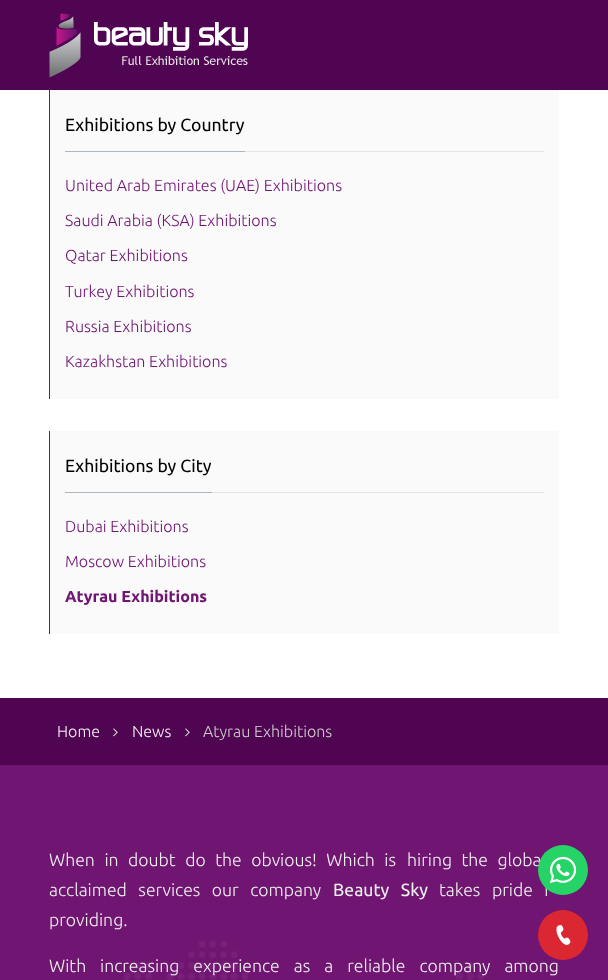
(async () => {
const canvas = document.querySelector("canvas")
canvas.width = 608
canvas.height = 980
const c = canvas.getContext("2d")
c.miterLimit = 4
c.fontKerning = "normal"
function T(s,x,y){c.fillText(s,x,y)}
function R(x,y,w,h){c.fillRect(x,y,w,h)}
async function I(src,x,y,w,h){const img=new Image();img.src=src;await img.decode();c.drawImage(img,x,y,w,h)}
c.fillStyle="#fff"
R(0,0,608,980)
c.fillStyle="#500552"
R(0,0,608,90)
await I("1.png",49,13,199,65)
c.fillStyle="#fafafa"
R(50,90,509,309)
c.fillStyle="#701572"
R(49,90,1,309)
c.fillStyle="#e2e3e4"
R(245,151,299,1)
c.fillStyle="#adb5bd"
R(65,151,180,1)
c.font="17.6px Ubuntu"
c.fillStyle="#000"
T("Exhibitions by Country",65,131)
c.font="300 16px Ubuntu"
c.fillStyle="#701572"
T("United Arab Emirates (UAE) Exhibitions",65,191)
T("Saudi Arabia (KSA) Exhibitions",65,226)
T("Qatar Exhibitions",65,261)
T("Turkey Exhibitions",65,297)
T("Russia Exhibitions",65,332)
T("Kazakhstan Exhibitions",65,367)
c.fillStyle="#fafafa"
R(50,431,509,203)
c.fillStyle="#701572"
R(49,431,1,203)
c.fillStyle="#e2e3e4"
R(212,492,332,1)
c.fillStyle="#adb5bd"
R(65,492,147,1)
c.font="17.6px Ubuntu"
c.fillStyle="#000"
T("Exhibitions by City",65,472)
c.font="300 16px Ubuntu"
c.fillStyle="#701572"
T("Dubai Exhibitions",65,532)
T("Moscow Exhibitions",65,567)
c.font="bold 16px Ubuntu"
T("Atyrau Exhibitions",65,602)
c.fillStyle="#500552"
R(0,698,608,67)
c.font="300 16px Ubuntu"
c.fillStyle="#efefef"
T("Home",57,737)
await I("2.png",113,728,5,9)
T("News",132,737)
await I("2.png",185,728,5,9)
c.fillStyle="#ccc"
T("Atyrau Exhibitions",203,737)
c.fillStyle="#701572"
R(0,765,608,215)
c.wordSpacing="5.5px"
c.font="300 17.6px Ubuntu"
c.fillStyle="#efefef"
T("When in doubt do the obvious! Which is",49,866)
T("hiring the globa",407,866)
c.wordSpacing="7.5px"
T("acclaimed services our company",49,896)
c.font="17.6px Ubuntu"
T("Beauty Sky",333,896)
c.font="300 17.6px Ubuntu"
T("takes pride i",439,896)
c.wordSpacing="0px"
T("providing.",49,926)
T("With",49,972)
await I("3.png",124,940,360,40)
c.wordSpacing="10px"
T("increasing experience as a reliable company among",100,972)
c.fillStyle="#25d366"
c.beginPath()
c.arc(563,870,25,0,7)
c.fill()
await I("4.png",550,856,27,27)
c.fillStyle="#da2731"
c.beginPath()
c.arc(563,935,25,0,7)
c.fill()
await I("5.png",556,925,15,20)
})()
